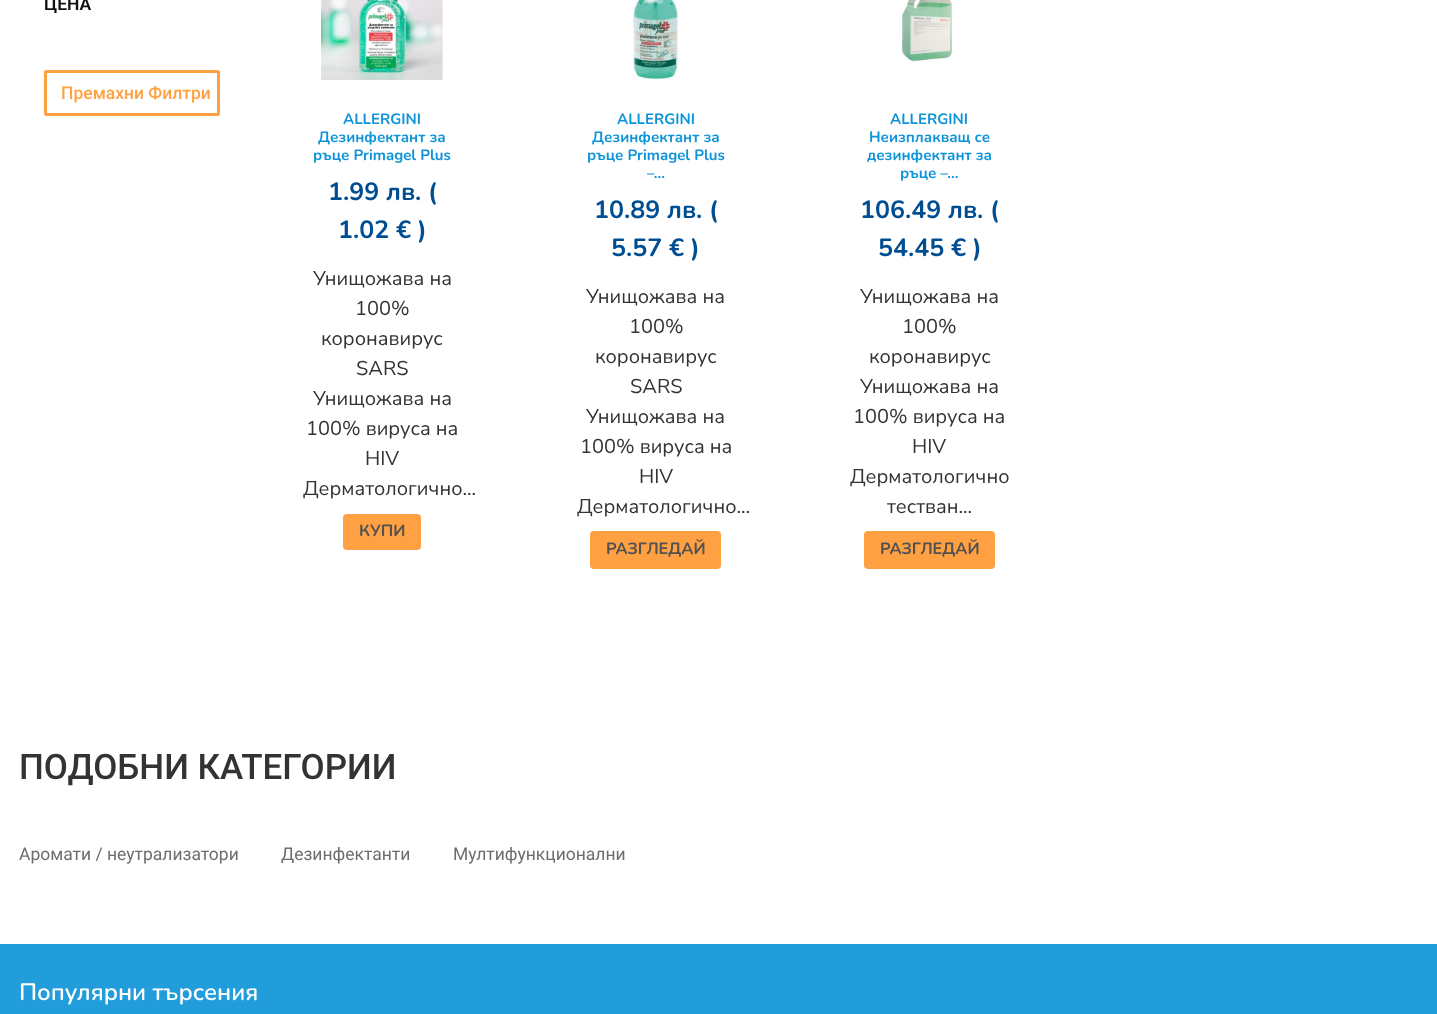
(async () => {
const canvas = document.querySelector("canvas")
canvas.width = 1437
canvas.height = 1014
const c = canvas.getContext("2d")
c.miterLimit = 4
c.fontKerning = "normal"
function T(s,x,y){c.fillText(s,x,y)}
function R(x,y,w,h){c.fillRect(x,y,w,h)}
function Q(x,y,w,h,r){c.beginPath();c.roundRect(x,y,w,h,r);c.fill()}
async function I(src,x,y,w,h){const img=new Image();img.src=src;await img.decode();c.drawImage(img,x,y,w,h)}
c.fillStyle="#fff"
R(0,0,1437,1014)
c.font="600 17.5px Roboto"
c.fillStyle="#111"
T("ЦЕНА",44,10)
c.beginPath()
c.roundRect(45.5,71.5,173,43,1)
c.strokeStyle="#ffa143"
c.lineWidth=3
c.stroke()
c.font="500 17.5px Roboto"
c.fillStyle="#ffa143"
T("Премахни Филтри",61,99)
await I("1.png",321,0,122,80)
c.font="bold 15px Nunito"
c.fillStyle="#0e94d8"
T("ALLERGINI",343,124)
T("Дезинфектант за",318,142)
T("ръце Primagel Plus",313,160)
c.font="bold 25px Nunito"
c.fillStyle="#004e92"
T("1.99 лв. (",328,200)
T("1.02 € )",338,238)
c.font="20px Nunito Sans"
c.fillStyle="#333"
T("Унищожава на",313,285)
T("100%",355,315)
T("коронавирус",321,345)
T("SARS",356,375)
T("Унищожава на",313,405)
T("100% вируса на",306,435)
T("HIV",365,465)
T("Дерматологично...",303,495)
c.fillStyle="#ffa143"
Q(343,514,78,36,4)
c.font="bold 16.25px Nunito"
c.fillStyle="#515151"
T("КУПИ",359,536)
await I("2.png",631,0,47,80)
c.font="bold 15px Nunito"
c.fillStyle="#0e94d8"
T("ALLERGINI",617,124)
T("Дезинфектант за",592,142)
T("ръце Primagel Plus",587,160)
T("–...",647,178)
c.font="bold 25px Nunito"
c.fillStyle="#004e92"
T("10.89 лв. (",594,218)
T("5.57 € )",611,256)
c.font="20px Nunito Sans"
c.fillStyle="#333"
T("Унищожава на",586,303)
T("100%",629,333)
T("коронавирус",595,363)
T("SARS",630,393)
T("Унищожава на",586,423)
T("100% вируса на",580,453)
T("HIV",639,483)
T("Дерматологично...",577,513)
c.fillStyle="#ffa143"
Q(590,531,131,38,4)
c.font="bold 16.25px Nunito"
c.fillStyle="#515151"
T("РАЗГЛЕДАЙ",606,554)
await I("3.png",902,0,50,63)
c.font="bold 15px Nunito"
c.fillStyle="#0e94d8"
T("ALLERGINI",890,124)
T("Неизплакващ се",869,142)
T("дезинфектант за",867,160)
T("ръце –...",900,178)
c.font="bold 25px Nunito"
c.fillStyle="#004e92"
T("106.49 лв. (",860,218)
T("54.45 € )",878,256)
c.font="20px Nunito Sans"
c.fillStyle="#333"
T("Унищожава на",860,303)
T("100%",902,333)
T("коронавирус",869,363)
T("Унищожава на",860,393)
T("100% вируса на",853,423)
T("HIV",912,453)
T("Дерматологично",850,483)
T("тестван...",887,513)
c.fillStyle="#ffa143"
Q(864,531,131,38,4)
c.font="bold 16.25px Nunito"
c.fillStyle="#515151"
T("РАЗГЛЕДАЙ",880,554)
c.font="500 35px Roboto"
c.fillStyle="#333"
T("ПОДОБНИ КАТЕГОРИИ",19,779)
c.font="17.5px Roboto"
c.fillStyle="#6d6d6d"
T("Аромати / неутрализатори",19,860)
T("Дезинфектанти",281,860)
T("Мултифункционални",453,860)
c.fillStyle="#219ddb"
R(0,944,1437,70)
c.font="600 23.75px Nunito"
c.fillStyle="#fff"
T("Популярни търсения",19,1000)
})()
